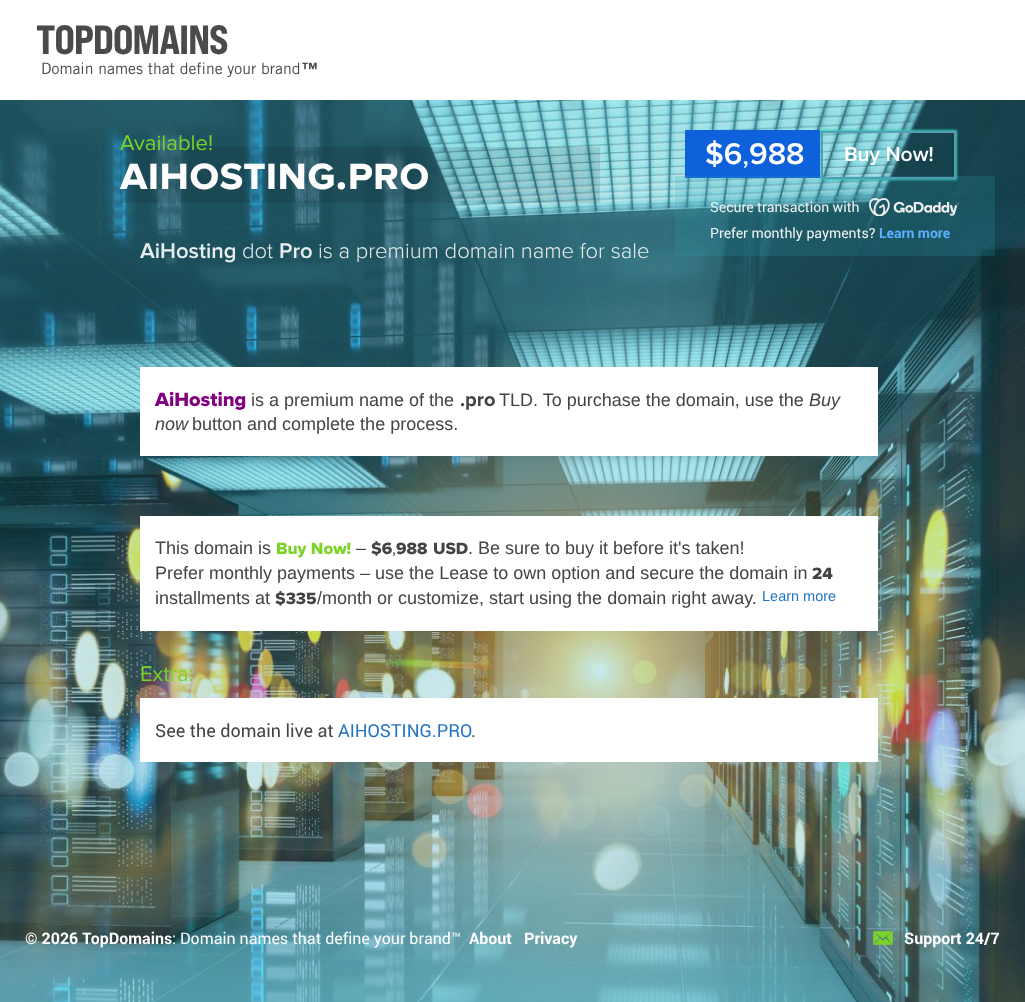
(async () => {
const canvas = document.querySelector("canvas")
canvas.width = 1025
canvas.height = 1002
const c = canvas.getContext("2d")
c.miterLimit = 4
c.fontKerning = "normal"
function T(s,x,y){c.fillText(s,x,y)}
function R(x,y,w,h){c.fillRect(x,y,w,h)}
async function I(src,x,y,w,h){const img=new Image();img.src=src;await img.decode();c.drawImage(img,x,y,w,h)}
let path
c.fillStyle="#fff"
R(0,0,1025,1002)
c.letterSpacing="-1.25px"
c.font="800 40.75px Bebas Neue"
c.fillStyle="#4a4a4a"
T("TOPDOMAINS",36,54)
c.letterSpacing="0px"
c.font="15.75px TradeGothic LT"
T("Domain names that define your brand",41,74)
c.font="bold 15.75px TradeGothic LT"
T("™",302,74)
await I("1.png",0,100,1025,902)
c.fillStyle="#0000001a"
R(120,147,480,56)
c.font="22px Proxima Nova"
c.fillStyle="#7bd428"
T("Available!",120,150)
c.font="bold 46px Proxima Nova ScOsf"
c.fillStyle="#fefefe"
T("aihosting.pro",120,189)
c.font="600 22px Proxima Nova"
c.fillStyle="#e8eeef"
T("AiHosting",140,258)
c.font="300 22px Proxima Nova"
T("dot",242,258)
c.font="600 22px Proxima Nova"
T("Pro",279,258)
c.font="300 22px Proxima Nova"
T("is a premium domain name for sale",318,258)
c.save()
path = new Path2D("M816 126h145v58h-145zm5 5h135v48h-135z")
c.clip(path,"evenodd")
c.fillStyle="#2ed1ab"
c.filter="blur(1px)"
c.beginPath()
c.rect(820,130,137,50)
c.fill()
c.filter="none"
c.restore()
c.fillStyle="#0f61db"
R(685,130,135,48)
c.font="600 31px Proxima Nova"
c.fillStyle="#fefefe"
T("$6",705,164)
c.font="31px Proxima Nova"
T(",",742,164)
c.font="600 31px Proxima Nova"
T("988",749,164)
c.strokeStyle="#579db5"
c.lineWidth=2
c.strokeRect(822,132,133,46)
c.fillStyle="#2ea1b333"
R(675,176,320,80)
c.font="14px Roboto"
c.fillStyle="#f3f3f3"
T("Secure transaction with",710,212)
await I("2.png",869,198,90,18)
T("Prefer monthly payments?",710,238)
c.font="bold 14px Roboto"
c.fillStyle="#5cb0ff"
T("Learn more",879,238)
c.font="600 21px Proxima Nova"
c.fillStyle="#fefefe"
T("Buy Now!",844,161)
c.fillStyle="#fff"
R(140,367,738,89)
c.font="800 20px Proxima Nova"
c.fillStyle="#800080"
T("AiHosting",155,406)
c.font="18px Liberation Sans"
c.fillStyle="#444"
T("is a premium name of the",251,406)
c.font="bold 20px Proxima Nova"
T(".pro",460,406)
c.font="18px Liberation Sans"
T("TLD. To purchase the domain, use the",499,406)
c.font="italic 18px Liberation Sans"
T("Buy",809,406)
T("now",155,430)
c.font="18px Liberation Sans"
T("button and complete the process.",192,430)
c.fillStyle="#fff"
R(140,516,738,115)
c.fillStyle="#444"
T("This domain is",155,554)
c.font="800 17px Proxima Nova"
c.fillStyle="#7bd428"
T("Buy Now!",276,554)
c.font="18px Liberation Sans"
c.fillStyle="#444"
T("–",356,554)
c.font="800 17px Proxima Nova"
T("$6",371,554)
T("988",396,554)
T("USD",433,554)
c.font="18px Liberation Sans"
T(". Be sure to buy it before it's taken!",468,554)
c.font="17px Proxima Nova"
T(",",392,554)
c.font="18px Liberation Sans"
T("Prefer monthly payments – use the Lease to own option and secure the domain in",155,579)
c.font="800 17px Proxima Nova"
T("24",812,579)
c.font="18px Liberation Sans"
T("installments at",155,604)
c.font="800 17px Proxima Nova"
T("$335",275,604)
c.font="18px Liberation Sans"
T("/month or customize, start using the domain right away.",317,604)
c.font="14.5px Liberation Sans"
c.fillStyle="#2374c4"
T("Learn more",762,601)
c.font="22px Proxima Nova"
c.fillStyle="#7bd428"
T("Extra:",140,681)
c.fillStyle="#fff"
R(140,698,738,64)
c.font="18px Roboto"
c.fillStyle="#444"
T("See the domain live at",155,737)
c.fillStyle="#2374c4"
T("AIHOSTING.PRO",338,737)
c.fillStyle="#444"
T(".",471,737)
c.font="bold 16px Roboto"
c.fillStyle="#fefefe"
T("© 2026 TopDomains",25,944)
c.font="16px Roboto"
T(": Domain names that define your brand™",172,944)
c.font="bold 16px Roboto"
T("About",469,944)
T("Privacy",524,944)
await I("3.png",873,931,20,14)
T("Support 24/7",904,944)
})()
